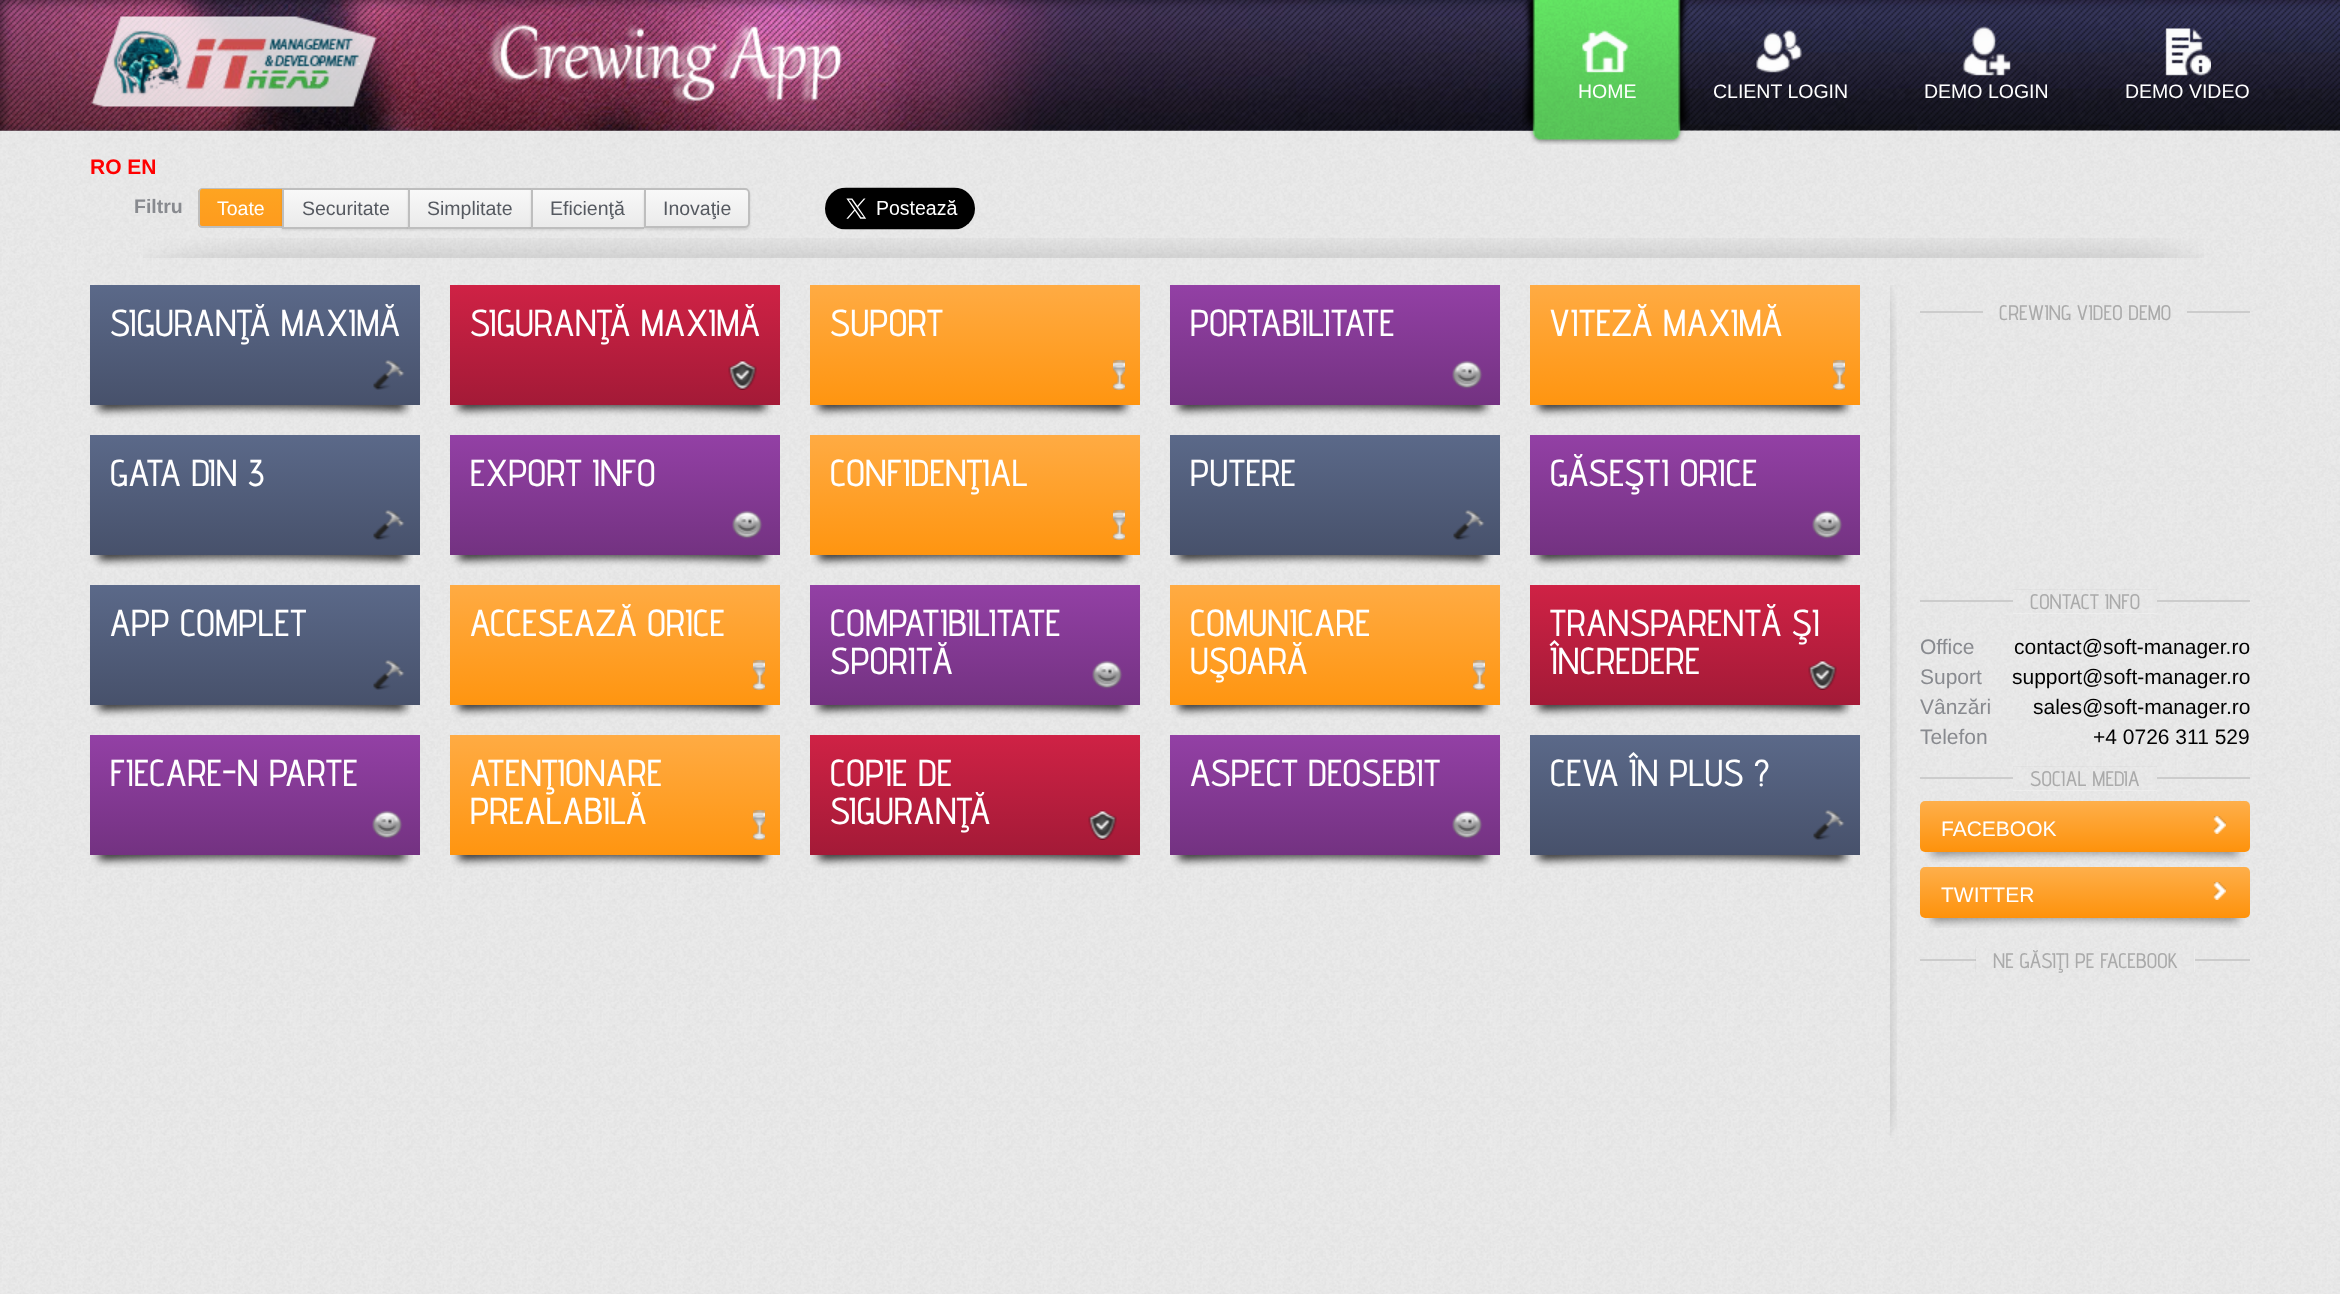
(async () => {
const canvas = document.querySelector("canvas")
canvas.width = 2340
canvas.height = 1294
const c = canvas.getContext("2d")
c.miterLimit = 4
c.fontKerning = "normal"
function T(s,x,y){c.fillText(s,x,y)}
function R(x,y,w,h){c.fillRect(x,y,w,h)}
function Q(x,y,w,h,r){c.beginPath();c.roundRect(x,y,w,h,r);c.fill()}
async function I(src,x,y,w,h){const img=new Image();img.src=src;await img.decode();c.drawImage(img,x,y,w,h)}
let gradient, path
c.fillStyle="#f3f3f3"
R(0,0,2340,1294)
await I("1.png",0,130,2340,1164)
await I("2.png",0,0,2340,131)
await I("3.png",91,16,751,91)
await I("4.png",1522,0,168,145)
await I("5.png",1582,29,47,44)
c.font="19.5px Liberation Sans"
c.fillStyle="#fff"
T("HOME",1578,98)
await I("6.png",1756,29,46,44)
T("CLIENT LOGIN",1713,98)
await I("7.png",1962,26,49,50)
T("DEMO LOGIN",1924,98)
await I("8.png",2165,28,46,49)
T("DEMO VIDEO",2125,98)
await I("9.png",143,238,2061,20)
c.font="bold 21px Liberation Sans"
c.fillStyle="#f00"
T("RO EN",90,174)
c.font="bold 19.5px Liberation Sans"
c.fillStyle="#888a8f"
T("Filtru",134,213)
c.save()
c.beginPath()
c.roundRect(198,188,84,40,[5,0,0,5])
c.clip()
gradient = c.createLinearGradient(241,189,241,227)
gradient.addColorStop(0,"#fea421")
gradient.addColorStop(1,"#fe9b1d")
c.fillStyle = gradient
R(198,189,84,38)
c.restore()
c.fillStyle="#bebebe"
path = new Path2D("M202 188h80v40h-80c-2 0-4-2-4-4v-32c0-2 2-4 4-4zm0 1h80v37h-80c-1 0-2-1-2-2v-32c0-2 1-3 2-3z")
c.fill(path,"evenodd")
c.font="19.5px Liberation Sans"
c.fillStyle="#fff"
T("Toate",217,215)
c.fillStyle="#0000001a"
c.filter="blur(1px)"
c.beginPath()
c.rect(282,189,126,41)
c.fill()
c.filter="none"
gradient = c.createLinearGradient(346,189,346,227)
gradient.addColorStop(0,"#f9f9f9")
gradient.addColorStop(1,"#eaeaea")
c.fillStyle = gradient
R(284,190,124,37)
c.fillStyle="#bebebe"
R(282,188,126,2)
R(282,227,126,2)
R(282,188,2,40)
c.fillStyle="#555960"
T("Securitate",302,215)
c.fillStyle="#0000001a"
c.filter="blur(1px)"
c.beginPath()
c.rect(408,189,123,41)
c.fill()
c.filter="none"
gradient = c.createLinearGradient(470,189,470,227)
gradient.addColorStop(0,"#f9f9f9")
gradient.addColorStop(1,"#eaeaea")
c.fillStyle = gradient
R(410,190,121,37)
c.fillStyle="#bebebe"
R(408,188,123,2)
R(408,227,123,2)
R(408,188,2,40)
c.fillStyle="#555960"
T("Simplitate",427,215)
c.fillStyle="#0000001a"
c.filter="blur(1px)"
c.beginPath()
c.rect(531,189,113,41)
c.fill()
c.filter="none"
gradient = c.createLinearGradient(588,189,588,227)
gradient.addColorStop(0,"#f9f9f9")
gradient.addColorStop(1,"#eaeaea")
c.fillStyle = gradient
R(533,190,111,37)
c.fillStyle="#bebebe"
R(531,188,113,2)
R(531,227,113,2)
R(531,188,2,40)
c.fillStyle="#555960"
T("Eficienţă",550,215)
c.fillStyle="#0000001a"
c.filter="blur(1px)"
c.beginPath()
c.roundRect(644,189,106,41,5)
c.fill()
c.filter="none"
c.save()
c.beginPath()
c.roundRect(644,188,106,40,[0,5,5,0])
c.clip()
gradient = c.createLinearGradient(697,189,697,227)
gradient.addColorStop(0,"#f9f9f9")
gradient.addColorStop(1,"#eaeaea")
c.fillStyle = gradient
R(646,189,104,38)
c.restore()
c.beginPath()
c.roundRect(645,189,104,38,[0,4,4,0])
c.strokeStyle="#bebebe"
c.lineWidth=2
c.stroke()
c.fillStyle="#555960"
T("Inovaţie",663,215)
await I("10.png",825,187,150,43)
gradient = c.createLinearGradient(255,285,255,405)
gradient.addColorStop(0,"#5b6989")
gradient.addColorStop(1,"#47516b")
c.fillStyle = gradient
R(90,285,330,120)
c.font="500 37.5px Advent Pro"
c.fillStyle="#fff"
T("SIGURANŢĂ MAXIMĂ",110,336)
await I("11.png",373,360,32,30)
await I("12.png",91,405,322,13)
gradient = c.createLinearGradient(615,285,615,405)
gradient.addColorStop(0,"#cf2245")
gradient.addColorStop(1,"#a31a37")
c.fillStyle = gradient
R(450,285,330,120)
c.fillStyle="#fff"
T("SIGURANŢĂ MAXIMĂ",470,336)
await I("13.png",728,360,29,30)
await I("14.png",451,405,322,13)
gradient = c.createLinearGradient(975,285,975,405)
gradient.addColorStop(0,"#ffab43")
gradient.addColorStop(1,"#ff9510")
c.fillStyle = gradient
R(810,285,330,120)
c.fillStyle="#fff"
T("SUPORT",830,336)
await I("15.png",1113,360,12,30)
await I("16.png",811,405,322,13)
gradient = c.createLinearGradient(1335,285,1335,405)
gradient.addColorStop(0,"#9340a5")
gradient.addColorStop(1,"#733281")
c.fillStyle = gradient
R(1170,285,330,120)
c.fillStyle="#fff"
T("PORTABILITATE",1190,336)
await I("17.png",1452,360,31,30)
await I("18.png",1171,405,322,13)
gradient = c.createLinearGradient(1695,285,1695,405)
gradient.addColorStop(0,"#ffab43")
gradient.addColorStop(1,"#ff9510")
c.fillStyle = gradient
R(1530,285,330,120)
c.fillStyle="#fff"
T("VITEZĂ MAXIMĂ",1550,336)
await I("15.png",1833,360,12,30)
await I("19.png",1531,405,322,13)
gradient = c.createLinearGradient(255,435,255,555)
gradient.addColorStop(0,"#5b6989")
gradient.addColorStop(1,"#47516b")
c.fillStyle = gradient
R(90,435,330,120)
c.fillStyle="#fff"
T("GATA DIN 3",110,486)
await I("11.png",373,510,32,30)
await I("20.png",91,555,322,13)
gradient = c.createLinearGradient(615,435,615,555)
gradient.addColorStop(0,"#9340a5")
gradient.addColorStop(1,"#733281")
c.fillStyle = gradient
R(450,435,330,120)
c.fillStyle="#fff"
T("EXPORT INFO",470,486)
await I("17.png",732,510,31,30)
await I("21.png",451,555,322,13)
gradient = c.createLinearGradient(975,435,975,555)
gradient.addColorStop(0,"#ffab43")
gradient.addColorStop(1,"#ff9510")
c.fillStyle = gradient
R(810,435,330,120)
c.fillStyle="#fff"
T("CONFIDENŢIAL",830,486)
await I("15.png",1113,510,12,30)
await I("22.png",811,555,322,13)
gradient = c.createLinearGradient(1335,435,1335,555)
gradient.addColorStop(0,"#5b6989")
gradient.addColorStop(1,"#47516b")
c.fillStyle = gradient
R(1170,435,330,120)
c.fillStyle="#fff"
T("PUTERE",1190,486)
await I("11.png",1453,510,32,30)
await I("23.png",1171,555,322,13)
gradient = c.createLinearGradient(1695,435,1695,555)
gradient.addColorStop(0,"#9340a5")
gradient.addColorStop(1,"#733281")
c.fillStyle = gradient
R(1530,435,330,120)
c.fillStyle="#fff"
T("GĂSEŞTI ORICE",1550,486)
await I("17.png",1812,510,31,30)
await I("24.png",1531,555,322,13)
gradient = c.createLinearGradient(255,585,255,705)
gradient.addColorStop(0,"#5b6989")
gradient.addColorStop(1,"#47516b")
c.fillStyle = gradient
R(90,585,330,120)
c.fillStyle="#fff"
T("APP COMPLET",110,636)
await I("11.png",373,660,32,30)
await I("25.png",91,705,322,13)
gradient = c.createLinearGradient(615,585,615,705)
gradient.addColorStop(0,"#ffab43")
gradient.addColorStop(1,"#ff9510")
c.fillStyle = gradient
R(450,585,330,120)
c.fillStyle="#fff"
T("ACCESEAZĂ ORICE",470,636)
await I("15.png",753,660,12,30)
await I("26.png",451,705,322,13)
gradient = c.createLinearGradient(975,585,975,705)
gradient.addColorStop(0,"#9340a5")
gradient.addColorStop(1,"#733281")
c.fillStyle = gradient
R(810,585,330,120)
c.fillStyle="#fff"
T("COMPATIBILITATE",830,636)
T("SPORITĂ",830,674)
await I("17.png",1092,660,31,30)
await I("27.png",811,705,322,13)
gradient = c.createLinearGradient(1335,585,1335,705)
gradient.addColorStop(0,"#ffab43")
gradient.addColorStop(1,"#ff9510")
c.fillStyle = gradient
R(1170,585,330,120)
c.fillStyle="#fff"
T("COMUNICARE",1190,636)
T("UŞOARĂ",1190,674)
await I("15.png",1473,660,12,30)
await I("28.png",1171,705,322,13)
gradient = c.createLinearGradient(1695,585,1695,705)
gradient.addColorStop(0,"#cf2245")
gradient.addColorStop(1,"#a31a37")
c.fillStyle = gradient
R(1530,585,330,120)
c.fillStyle="#fff"
T("TRANSPARENTĂ ŞI",1550,636)
T("ÎNCREDERE",1550,674)
await I("13.png",1808,660,29,30)
await I("29.png",1531,705,322,13)
gradient = c.createLinearGradient(255,735,255,855)
gradient.addColorStop(0,"#9340a5")
gradient.addColorStop(1,"#733281")
c.fillStyle = gradient
R(90,735,330,120)
c.fillStyle="#fff"
T("FIECARE-N PARTE",110,786)
await I("17.png",372,810,31,30)
await I("30.png",91,855,322,13)
gradient = c.createLinearGradient(615,735,615,855)
gradient.addColorStop(0,"#ffab43")
gradient.addColorStop(1,"#ff9510")
c.fillStyle = gradient
R(450,735,330,120)
c.fillStyle="#fff"
T("ATENŢIONARE",470,786)
T("PREALABILĂ",470,824)
await I("15.png",753,810,12,30)
await I("31.png",451,855,322,13)
gradient = c.createLinearGradient(975,735,975,855)
gradient.addColorStop(0,"#cf2245")
gradient.addColorStop(1,"#a31a37")
c.fillStyle = gradient
R(810,735,330,120)
c.fillStyle="#fff"
T("COPIE DE",830,786)
T("SIGURANŢĂ",830,824)
await I("13.png",1088,810,29,30)
await I("32.png",811,855,322,13)
gradient = c.createLinearGradient(1335,735,1335,855)
gradient.addColorStop(0,"#9340a5")
gradient.addColorStop(1,"#733281")
c.fillStyle = gradient
R(1170,735,330,120)
c.fillStyle="#fff"
T("ASPECT DEOSEBIT",1190,786)
await I("17.png",1452,810,31,30)
await I("33.png",1171,855,322,13)
gradient = c.createLinearGradient(1695,735,1695,855)
gradient.addColorStop(0,"#5b6989")
gradient.addColorStop(1,"#47516b")
c.fillStyle = gradient
R(1530,735,330,120)
c.fillStyle="#fff"
T("CEVA ÎN PLUS ?",1550,786)
await I("11.png",1813,810,32,30)
await I("34.png",1531,855,322,13)
await I("35.png",1890,285,7,853)
c.fillStyle="#ccc"
R(1920,311,330,2)
c.fillStyle="#f3f3f3"
R(1983,300,204,24)
await I("36.png",1983,300,204,24)
c.font="500 21px Advent Pro"
c.fillStyle="#aaa"
T("CREWING VIDEO DEMO",1999,320)
c.fillStyle="#ccc"
R(1920,600,330,2)
c.fillStyle="#f3f3f3"
R(2013,590,144,24)
await I("37.png",2013,589,144,25)
c.fillStyle="#aaa"
T("CONTACT INFO",2030,609)
c.font="21px Liberation Sans"
c.fillStyle="#888a8f"
T("Office",1920,654)
c.fillStyle="#000"
T("contact@soft-manager.ro",2014,654)
c.fillStyle="#888a8f"
T("Suport",1920,684)
c.fillStyle="#000"
T("support@soft-manager.ro",2012,684)
c.fillStyle="#888a8f"
T("Vânzări",1920,714)
c.fillStyle="#000"
T("sales@soft-manager.ro",2033,714)
c.fillStyle="#888a8f"
T("Telefon",1920,744)
c.fillStyle="#000"
T("+4 0726 311 529",2093,744)
c.fillStyle="#ccc"
R(1920,777,330,2)
c.fillStyle="#f3f3f3"
R(2013,767,144,24)
await I("38.png",2013,766,144,25)
c.font="500 21px Advent Pro"
c.fillStyle="#aaa"
T("SOCIAL MEDIA",2030,786)
gradient = c.createLinearGradient(2085,801,2085,852)
gradient.addColorStop(0,"#feaf4b")
gradient.addColorStop(1,"#fe920b")
c.fillStyle = gradient
Q(1920,801,330,51,5)
c.font="21px Liberation Sans"
c.fillStyle="#fff"
T("FACEBOOK",1941,836)
await I("39.png",2213,816,13,18)
await I("40.png",1925,852,320,10)
gradient = c.createLinearGradient(2085,867,2085,918)
gradient.addColorStop(0,"#feaf4b")
gradient.addColorStop(1,"#fe920b")
c.fillStyle = gradient
Q(1920,867,330,51,5)
c.fillStyle="#fff"
T("TWITTER",1941,902)
await I("39.png",2213,882,13,18)
await I("41.png",1925,918,320,10)
c.fillStyle="#ccc"
R(1920,959,330,2)
c.fillStyle="#f3f3f3"
R(1976,948,219,24)
await I("42.png",1975,948,220,24)
c.font="500 21px Advent Pro"
c.fillStyle="#aaa"
T("NE GĂSIŢI PE FACEBOOK",1993,968)
})()
